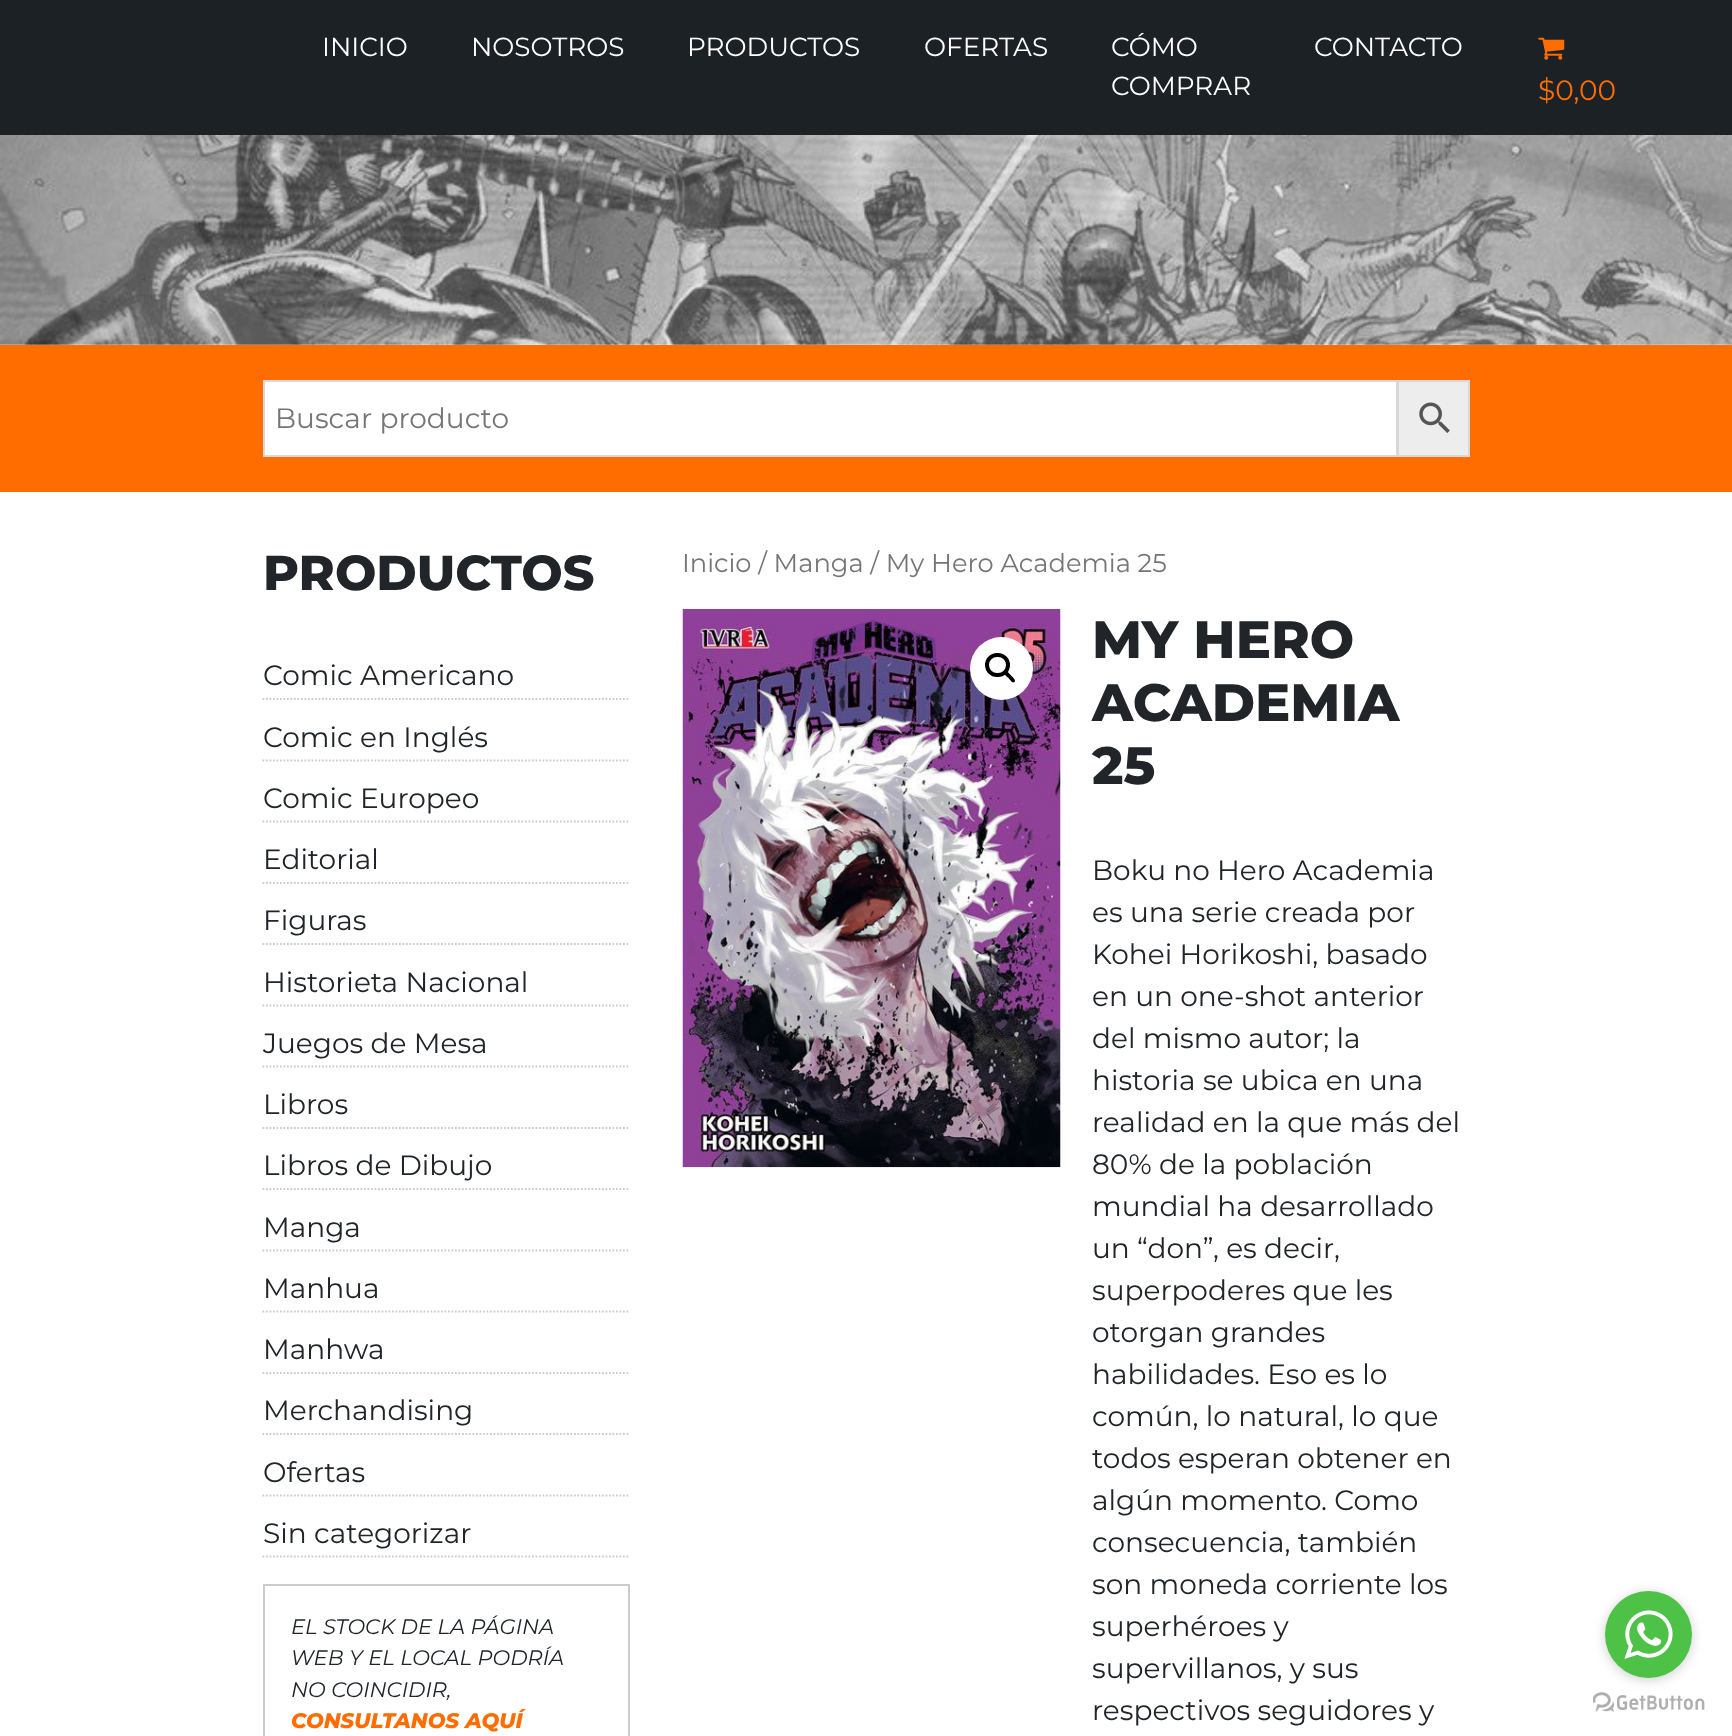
(async () => {
const canvas = document.querySelector("canvas")
canvas.width = 1732
canvas.height = 1736
const c = canvas.getContext("2d")
c.miterLimit = 4
c.fontKerning = "normal"
function T(s,x,y){c.fillText(s,x,y)}
function R(x,y,w,h){c.fillRect(x,y,w,h)}
async function I(src,x,y,w,h){const img=new Image();img.src=src;await img.decode();c.drawImage(img,x,y,w,h)}
let path
c.fillStyle="#fff"
R(0,0,1732,1736)
c.fillStyle="#1c2126"
R(0,0,1732,135)
c.font="26.25px Montserrat"
c.fillStyle="#fff"
T("INICIO",322,56)
T("NOSOTROS",471,56)
T("PRODUCTOS",687,56)
T("OFERTAS",924,56)
T("CÓMO",1111,56)
T("COMPRAR",1111,95)
T("CONTACTO",1314,56)
await I("1.png",1538,37,27,23)
c.font="28px Montserrat"
c.fillStyle="#ff6d00"
T("$0,00",1538,100)
await I("2.png",0,135,1732,210)
R(0,345,1732,147)
c.fillStyle="#ededed"
c.beginPath()
c.rect(1398,381,71,75)
c.fill()
c.strokeStyle="#d8d8d8"
c.lineWidth=2
c.stroke()
c.fillStyle="#fff"
c.beginPath()
c.rect(264,381,1133,75)
c.fill()
c.stroke()
c.fillStyle="#767676"
T("Buscar producto",275,428)
await I("3.png",1419,402,31,31)
c.font="800 49px Montserrat"
c.fillStyle="#212529"
T("PRODUCTOS",263,590)
path = new Path2D("M262.5 699h367.5")
c.strokeStyle="#ccc"
c.lineWidth=1.8
c.setLineDash([1.75,1.75])
c.stroke(path)
c.font="28px Montserrat"
T("Comic Americano",263,685)
path = new Path2D("M262.5 760.5h367.5")
c.stroke(path)
T("Comic en Inglés",263,747)
path = new Path2D("M262.5 821.5h367.5")
c.stroke(path)
T("Comic Europeo",263,808)
path = new Path2D("M262.5 883h367.5")
c.stroke(path)
T("Editorial",263,869)
path = new Path2D("M262.5 944h367.5")
c.stroke(path)
T("Figuras",263,930)
path = new Path2D("M262.5 1005.5h367.5")
c.stroke(path)
T("Historieta Nacional",263,992)
path = new Path2D("M262.5 1066.5h367.5")
c.stroke(path)
T("Juegos de Mesa",263,1053)
path = new Path2D("M262.5 1128h367.5")
c.stroke(path)
T("Libros",263,1114)
path = new Path2D("M262.5 1189h367.5")
c.stroke(path)
T("Libros de Dibujo",263,1175)
path = new Path2D("M262.5 1250.5h367.5")
c.stroke(path)
T("Manga",263,1237)
path = new Path2D("M262.5 1311.5h367.5")
c.stroke(path)
T("Manhua",263,1298)
path = new Path2D("M262.5 1373h367.5")
c.stroke(path)
T("Manhwa",263,1359)
path = new Path2D("M262.5 1434h367.5")
c.stroke(path)
T("Merchandising",263,1420)
path = new Path2D("M262.5 1495.5h367.5")
c.stroke(path)
T("Ofertas",263,1482)
path = new Path2D("M262.5 1556.5h367.5")
c.stroke(path)
T("Sin categorizar",263,1543)
c.lineWidth=2
c.setLineDash([])
c.strokeRect(264,1585,365,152)
c.font="italic 21px Montserrat"
T("EL STOCK DE LA PÁGINA",291,1634)
T("WEB Y EL LOCAL PODRÍA",291,1665)
T("NO COINCIDIR,",291,1697)
c.font="italic 800 21px Montserrat"
c.fillStyle="#ff6d00"
T("CONSULTANOS AQUÍ",291,1728)
c.font="25.75px Montserrat"
c.fillStyle="#767676"
T("Inicio / Manga / My Hero Academia 25",682,572)
await I("4.png",682,609,379,559)
c.fillStyle="#fff"
c.beginPath()
c.arc(1001.5,668.5,31.5,0,7)
c.fill()
c.beginPath()
c.roundRect(987,655,21,20,10)
c.strokeStyle="#000"
c.lineWidth=4
c.stroke()
c.fillStyle="#000"
path = new Path2D("M1005 672c2-2 5 2.5 6 3.5c1 1 5.5 4.5 3.5 6.5c-2 2-5-3-6-4c-1-1-5.5-4-3.5-6z")
c.fill(path)
c.font="800 52.5px Montserrat"
c.fillStyle="#212529"
T("MY HERO",1092,658)
T("ACADEMIA",1092,721)
T("25",1092,784)
c.font="28px Montserrat"
T("Boku no Hero Academia",1092,880)
T("es una serie creada por",1092,922)
T("Kohei Horikoshi, basado",1092,964)
T("en un one-shot anterior",1092,1006)
T("del mismo autor; la",1092,1048)
T("historia se ubica en una",1092,1090)
T("realidad en la que más del",1092,1132)
T("80% de la población",1092,1174)
T("mundial ha desarrollado",1092,1216)
T("un “don”, es decir,",1092,1258)
T("superpoderes que les",1092,1300)
T("otorgan grandes",1092,1342)
T("habilidades. Eso es lo",1092,1384)
T("común, lo natural, lo que",1092,1426)
T("todos esperan obtener en",1092,1468)
T("algún momento. Como",1092,1510)
T("consecuencia, también",1092,1552)
T("son moneda corriente los",1092,1594)
T("superhéroes y",1092,1636)
T("supervillanos, y sus",1092,1678)
T("respectivos seguidores y",1092,1720)
await I("6.png",1593,1692,112,20)
c.fillStyle="#88888866"
c.filter="blur(6px)"
c.beginPath()
c.roundRect(1605,1593,87,87,43.5)
c.fill()
c.filter="none"
c.fillStyle="#4dc247"
c.beginPath()
c.arc(1648.5,1634.5,43.5,0,7)
c.fill()
await I("5.png",1624,1610,49,49)
})()
